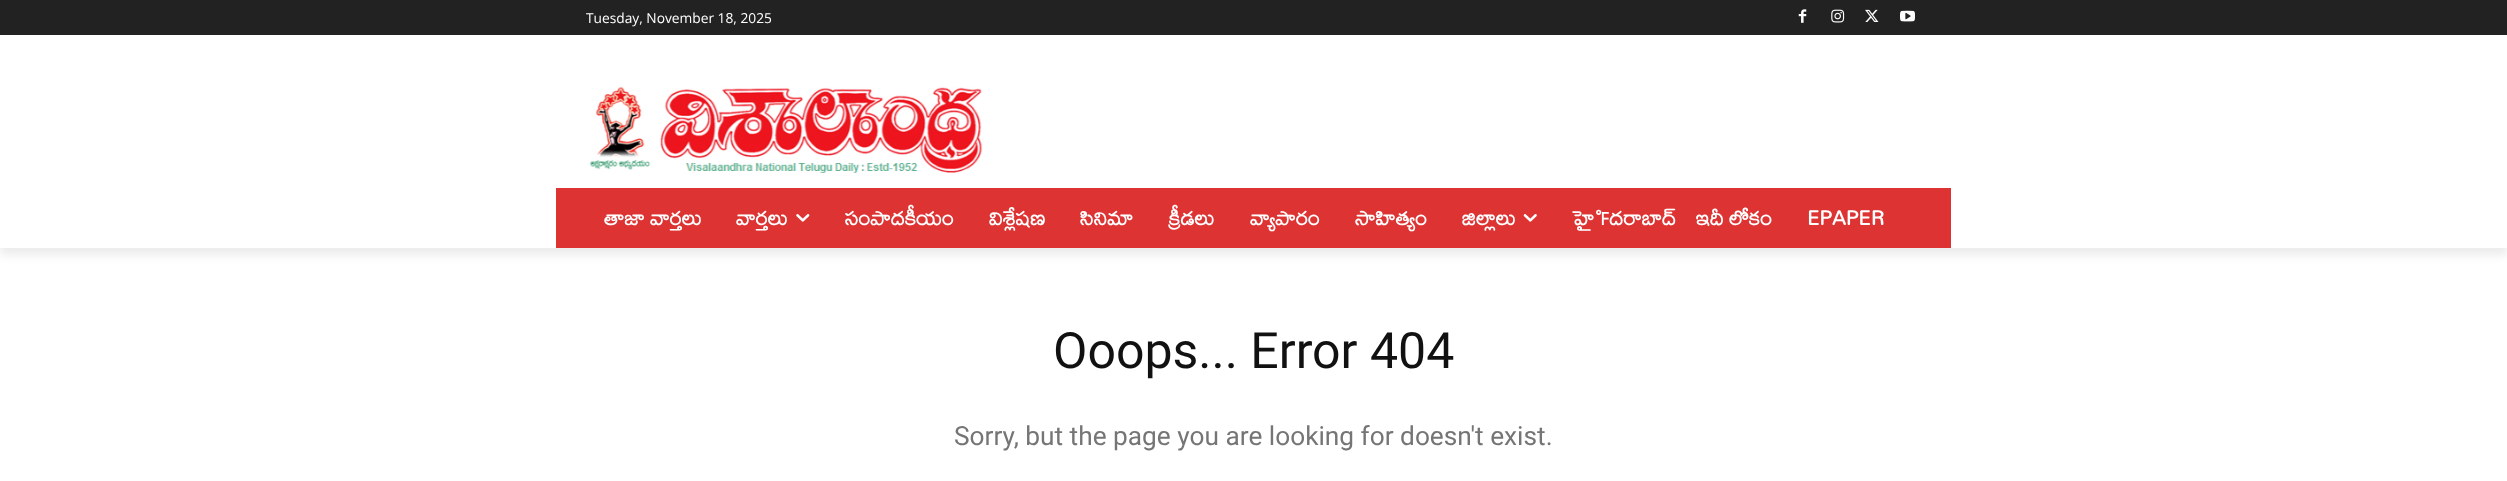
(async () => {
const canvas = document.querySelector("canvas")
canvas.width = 2507
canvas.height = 481
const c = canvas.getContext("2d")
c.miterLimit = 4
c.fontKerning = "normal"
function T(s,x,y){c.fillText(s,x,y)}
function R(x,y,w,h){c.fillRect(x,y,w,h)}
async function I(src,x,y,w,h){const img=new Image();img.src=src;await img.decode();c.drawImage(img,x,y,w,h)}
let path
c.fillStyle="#fff"
R(0,0,2507,481)
c.fillStyle="#222"
R(0,0,2507,35)
await I("1.png",1798,9,9,14)
await I("2.png",1831,9,14,14)
await I("3.png",1865,9,14,13)
await I("4.png",1900,10,15,12)
await I("5.png",590,86,393,87)
c.fillStyle="#d33"
R(556,188,1395,60)
c.save()
path = new Path2D("M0 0h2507v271h-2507zm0 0h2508v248h-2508z")
c.clip(path,"evenodd")
c.fillStyle="#00000014"
c.filter="blur(5px)"
c.beginPath()
c.rect(0,8,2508,247)
c.fill()
c.filter="none"
c.restore()
c.font="13.75px Open Sans"
c.fillStyle="#fff"
T("Tuesday, November 18, 2025",586,23)
c.font="bold 22.5px Mallanna"
T("తాజా వార్తలు",604,225)
T("వార్తలు",736,225)
await I("6.png",796,214,14,8)
T("సంపాదకీయం",845,225)
T("విశ్లేషణ",989,225)
T("సినిమా",1080,225)
T("క్రీడలు",1168,225)
T("వ్యాపారం",1250,225)
T("సాహిత్యం",1355,225)
T("జిల్లాలు",1462,225)
await I("7.png",1523,214,14,8)
T("హైదరాబాద్",1572,225)
T("ఇదీ లోకం",1696,225)
T("EPAPER",1807,225)
c.font="50px Roboto"
c.fillStyle="#111"
T("Ooops... Error 404",1053,368)
c.font="26.25px Roboto"
c.fillStyle="#757575"
T("Sorry, but the page you are looking for doesn't exist.",954,445)
})()
